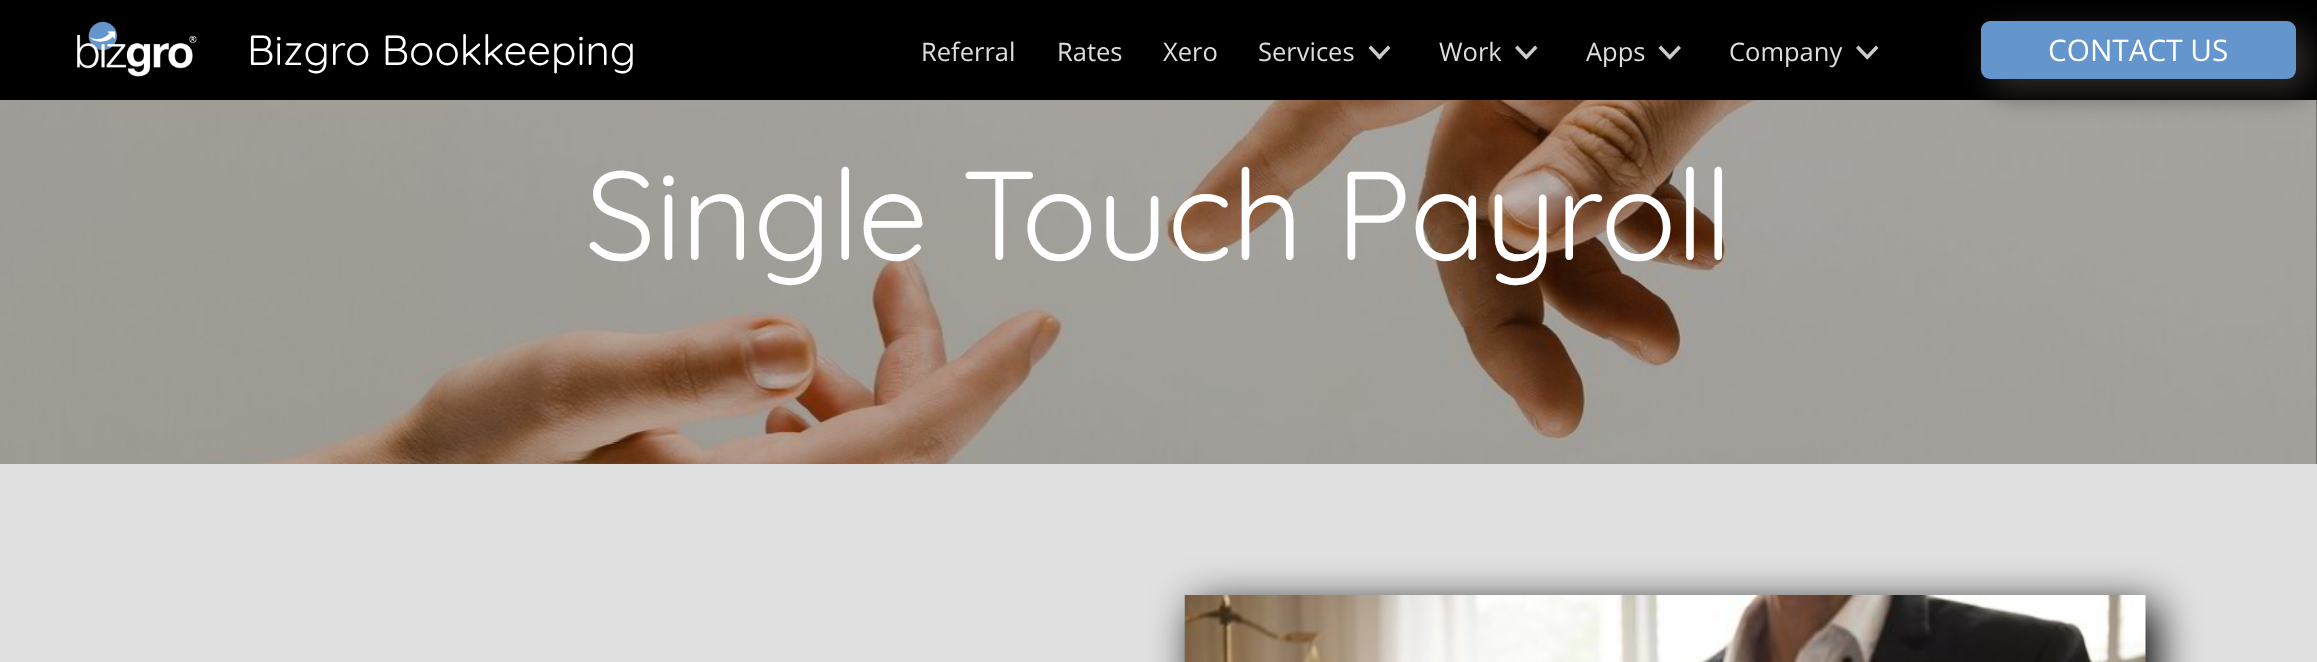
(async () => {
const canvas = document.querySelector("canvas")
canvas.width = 2317
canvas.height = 662
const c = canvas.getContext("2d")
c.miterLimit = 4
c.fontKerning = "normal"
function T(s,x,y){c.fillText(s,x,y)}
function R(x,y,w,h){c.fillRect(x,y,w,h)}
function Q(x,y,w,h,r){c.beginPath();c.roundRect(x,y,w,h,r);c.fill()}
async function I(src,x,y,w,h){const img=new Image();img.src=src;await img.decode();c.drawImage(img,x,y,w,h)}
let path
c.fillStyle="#000"
R(0,0,2317,662)
await I("1.png",77,21,120,56)
c.font="42px Quicksand"
c.fillStyle="#fff"
T("Bizgro Bookkeeping",247,65)
c.font="25.5px Open Sans"
c.fillStyle="#dedede"
T("Referral",921,61)
T("Rates",1057,61)
T("Xero",1163,61)
T("Services",1258,61)
c.fillStyle="#ccc"
path = new Path2D("M1371 45.5l11 11.5l-2.5 2.5l-11-11.5z")
c.fill(path)
path = new Path2D("M1377 57l11-11.5l2.5 2.5l-11 11.5z")
c.fill(path)
c.fillStyle="#dedede"
T("Work",1439,61)
c.fillStyle="#ccc"
path = new Path2D("M1517.5 45.5l11 11.5l-2.5 2.5l-11-11.5z")
c.fill(path)
path = new Path2D("M1524 57l11-11.5l2.5 2.5l-11 11.5z")
c.fill(path)
c.fillStyle="#dedede"
T("Apps",1586,61)
c.fillStyle="#ccc"
path = new Path2D("M1661 45.5l11 11.5l-2.5 2.5l-11-11.5z")
c.fill(path)
path = new Path2D("M1667.5 57l11-11.5l2.5 2.5l-11 11.5z")
c.fill(path)
c.fillStyle="#dedede"
T("Company",1729,61)
c.fillStyle="#ccc"
path = new Path2D("M1858.5 45.5l11 11.5l-2.5 2.5l-11-11.5z")
c.fill(path)
path = new Path2D("M1865 57l11-11.5l2.5 2.5l-11 11.5z")
c.fill(path)
await I("3.png",0,100,2317,364)
c.fillStyle="#312c2b"
c.filter="blur(15px)"
c.beginPath()
c.roundRect(1992,32,315,57,9)
c.fill()
c.filter="none"
c.fillStyle="#6495cd"
Q(1981,21,315,58,9)
c.font="29.75px Open Sans"
c.fillStyle="#fff"
T("CONTACT US",2048,61)
c.letterSpacing="-0.9px"
c.font="126px Quicksand"
T("Single Touch Payroll",585,260)
c.fillStyle="#e1e1e1"
R(0,464,2317,198)
c.fillStyle="#000"
c.filter="blur(22px)"
c.beginPath()
c.rect(1195,606,961,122)
c.fill()
c.filter="none"
await I("2.png",1184,595,962,67)
})()
